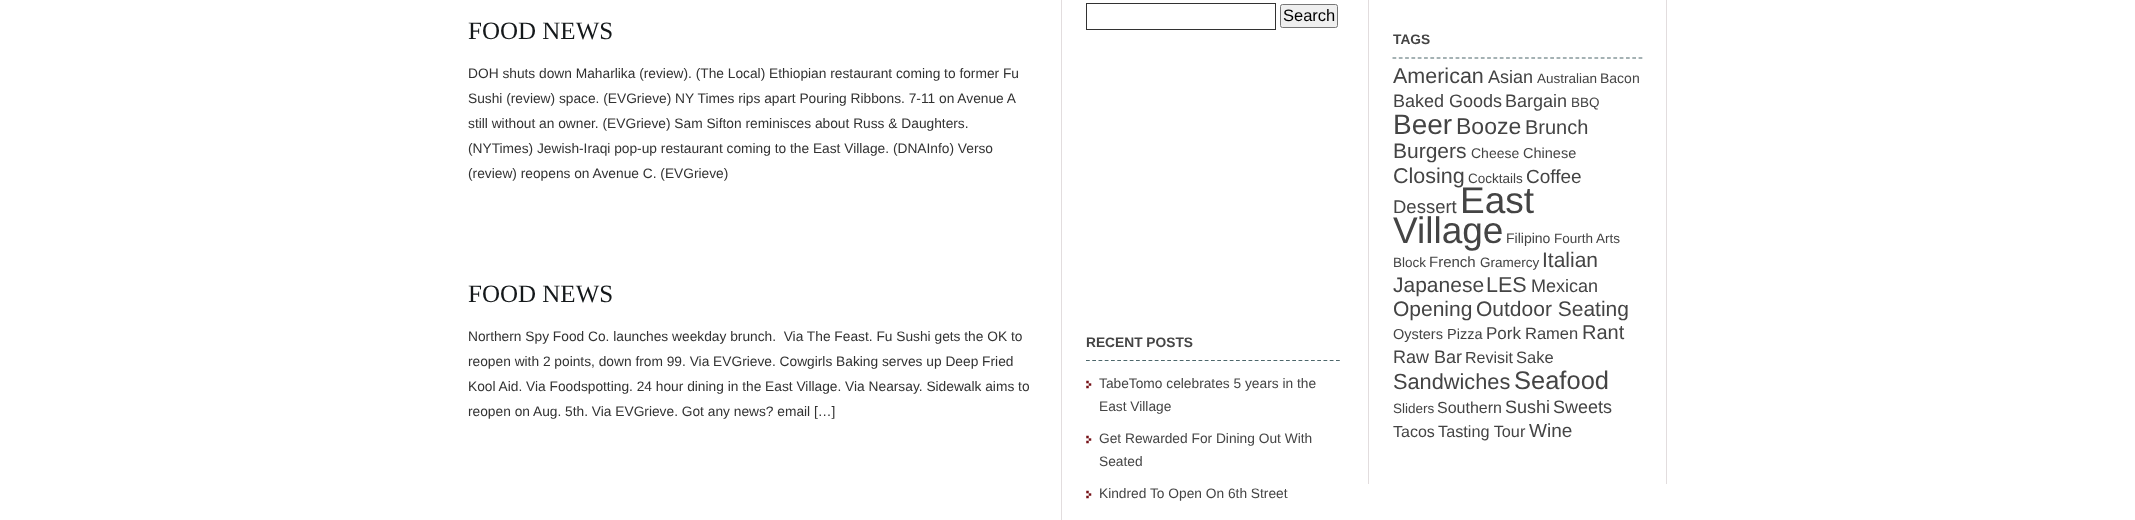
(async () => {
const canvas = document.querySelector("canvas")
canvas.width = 2135
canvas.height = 520
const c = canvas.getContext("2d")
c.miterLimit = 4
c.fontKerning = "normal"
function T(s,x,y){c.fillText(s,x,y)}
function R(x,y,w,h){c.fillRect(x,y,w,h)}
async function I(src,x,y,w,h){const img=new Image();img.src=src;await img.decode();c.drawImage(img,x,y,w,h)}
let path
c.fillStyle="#fff"
R(0,0,2135,520)
c.font="25px Liberation Serif"
c.fillStyle="#14181a"
T("FOOD NEWS",468,39)
c.font="13.75px Liberation Sans"
c.fillStyle="#323232"
T("DOH shuts down Maharlika (review). (The Local) Ethiopian restaurant coming to former Fu",468,78)
T("Sushi (review) space. (EVGrieve) NY Times rips apart Pouring Ribbons. 7-11 on Avenue A",468,103)
T("still without an owner. (EVGrieve) Sam Sifton reminisces about Russ & Daughters.",468,128)
T("(NYTimes) Jewish-Iraqi pop-up restaurant coming to the East Village. (DNAInfo) Verso",468,153)
T("(review) reopens on Avenue C. (EVGrieve)",468,178)
c.font="25px Liberation Serif"
c.fillStyle="#14181a"
T("FOOD NEWS",468,302)
c.font="13.75px Liberation Sans"
c.fillStyle="#323232"
T("Northern Spy Food Co. launches weekday brunch.  Via The Feast. Fu Sushi gets the OK to",468,341)
T("reopen with 2 points, down from 99. Via EVGrieve. Cowgirls Baking serves up Deep Fried",468,366)
T("Kool Aid. Via Foodspotting. 24 hour dining in the East Village. Via Nearsay. Sidewalk aims to",468,391)
T("reopen on Aug. 5th. Via EVGrieve. Got any news? email […]",468,416)
c.fillStyle="#e2ddde"
R(1061,0,1,520)
c.strokeStyle="#323232"
c.strokeRect(1086.5,3.5,189,26)
c.fillStyle="#efefef"
c.beginPath()
c.roundRect(1280.5,4.5,57,23,2)
c.fill()
c.strokeStyle="#767676"
c.stroke()
c.font="16.5px Liberation Sans"
c.fillStyle="#000"
T("Search",1283,21)
path = new Path2D("M1086 360.5h254")
c.strokeStyle="#4c666a"
c.lineWidth=1.2
c.setLineDash([3.75,2.5])
c.stroke(path)
c.font="bold 13.75px Liberation Sans"
c.fillStyle="#444"
T("RECENT POSTS",1086,347)
await I("1.png",1086,380,6,9)
c.font="13.75px Liberation Sans"
T("TabeTomo celebrates 5 years in the",1099,388)
T("East Village",1099,411)
await I("1.png",1086,435,6,9)
T("Get Rewarded For Dining Out With",1099,443)
T("Seated",1099,466)
await I("1.png",1086,490,6,9)
T("Kindred To Open On 6th Street",1099,498)
c.fillStyle="#e2ddde"
R(1666,0,1,484)
R(1368,0,1,484)
path = new Path2D("M1392.5 58h250")
c.setLineDash([3.75,2.56])
c.stroke(path)
c.font="bold 13.75px Liberation Sans"
c.fillStyle="#444"
T("TAGS",1393,44)
c.font="21.5px Liberation Sans"
T("American",1393,83)
c.font="18px Liberation Sans"
T("Asian",1488,83)
c.font="13.5px Liberation Sans"
T("Australian",1537,83)
c.font="14px Liberation Sans"
T("Bacon",1600,83)
c.font="18px Liberation Sans"
T("Baked Goods",1393,107)
T("Bargain",1505,107)
c.font="13.5px Liberation Sans"
T("BBQ",1571,107)
c.font="28px Liberation Sans"
T("Beer",1393,134)
c.font="23px Liberation Sans"
T("Booze",1456,134)
c.font="20px Liberation Sans"
T("Brunch",1525,134)
c.font="21px Liberation Sans"
T("Burgers",1393,158)
c.font="14px Liberation Sans"
T("Cheese",1471,158)
c.font="14.5px Liberation Sans"
T("Chinese",1523,158)
c.font="21.5px Liberation Sans"
T("Closing",1393,183)
c.font="13.5px Liberation Sans"
T("Cocktails",1468,183)
c.font="19px Liberation Sans"
T("Coffee",1526,183)
c.font="18.5px Liberation Sans"
T("Dessert",1393,213)
c.font="37px Liberation Sans"
T("East",1460,213)
T("Village",1393,243)
c.font="14px Liberation Sans"
T("Filipino",1506,243)
c.font="13.5px Liberation Sans"
T("Fourth Arts",1554,243)
T("Block",1393,267)
c.font="15px Liberation Sans"
T("French",1429,267)
c.font="13.5px Liberation Sans"
T("Gramercy",1480,267)
c.font="21px Liberation Sans"
T("Italian",1542,267)
T("Japanese",1393,292)
c.font="21.5px Liberation Sans"
T("LES",1486,292)
c.font="18px Liberation Sans"
T("Mexican",1531,292)
c.font="21px Liberation Sans"
T("Opening",1393,316)
T("Outdoor Seating",1476,316)
c.font="14.5px Liberation Sans"
T("Oysters",1393,339)
T("Pizza",1447,339)
c.font="17px Liberation Sans"
T("Pork",1486,339)
c.font="16.5px Liberation Sans"
T("Ramen",1525,339)
c.font="20px Liberation Sans"
T("Rant",1582,339)
c.font="18px Liberation Sans"
T("Raw Bar",1393,363)
c.font="16px Liberation Sans"
T("Revisit",1465,363)
c.font="16.5px Liberation Sans"
T("Sake",1516,363)
c.font="21.75px Liberation Sans"
T("Sandwiches",1393,389)
c.font="25.5px Liberation Sans"
T("Seafood",1514,389)
c.font="13.5px Liberation Sans"
T("Sliders",1393,413)
c.font="16px Liberation Sans"
T("Southern",1437,413)
c.font="18px Liberation Sans"
T("Sushi",1505,413)
T("Sweets",1553,413)
c.font="16px Liberation Sans"
T("Tacos",1393,437)
c.font="16.25px Liberation Sans"
T("Tasting Tour",1438,437)
c.font="19px Liberation Sans"
T("Wine",1529,437)
})()
